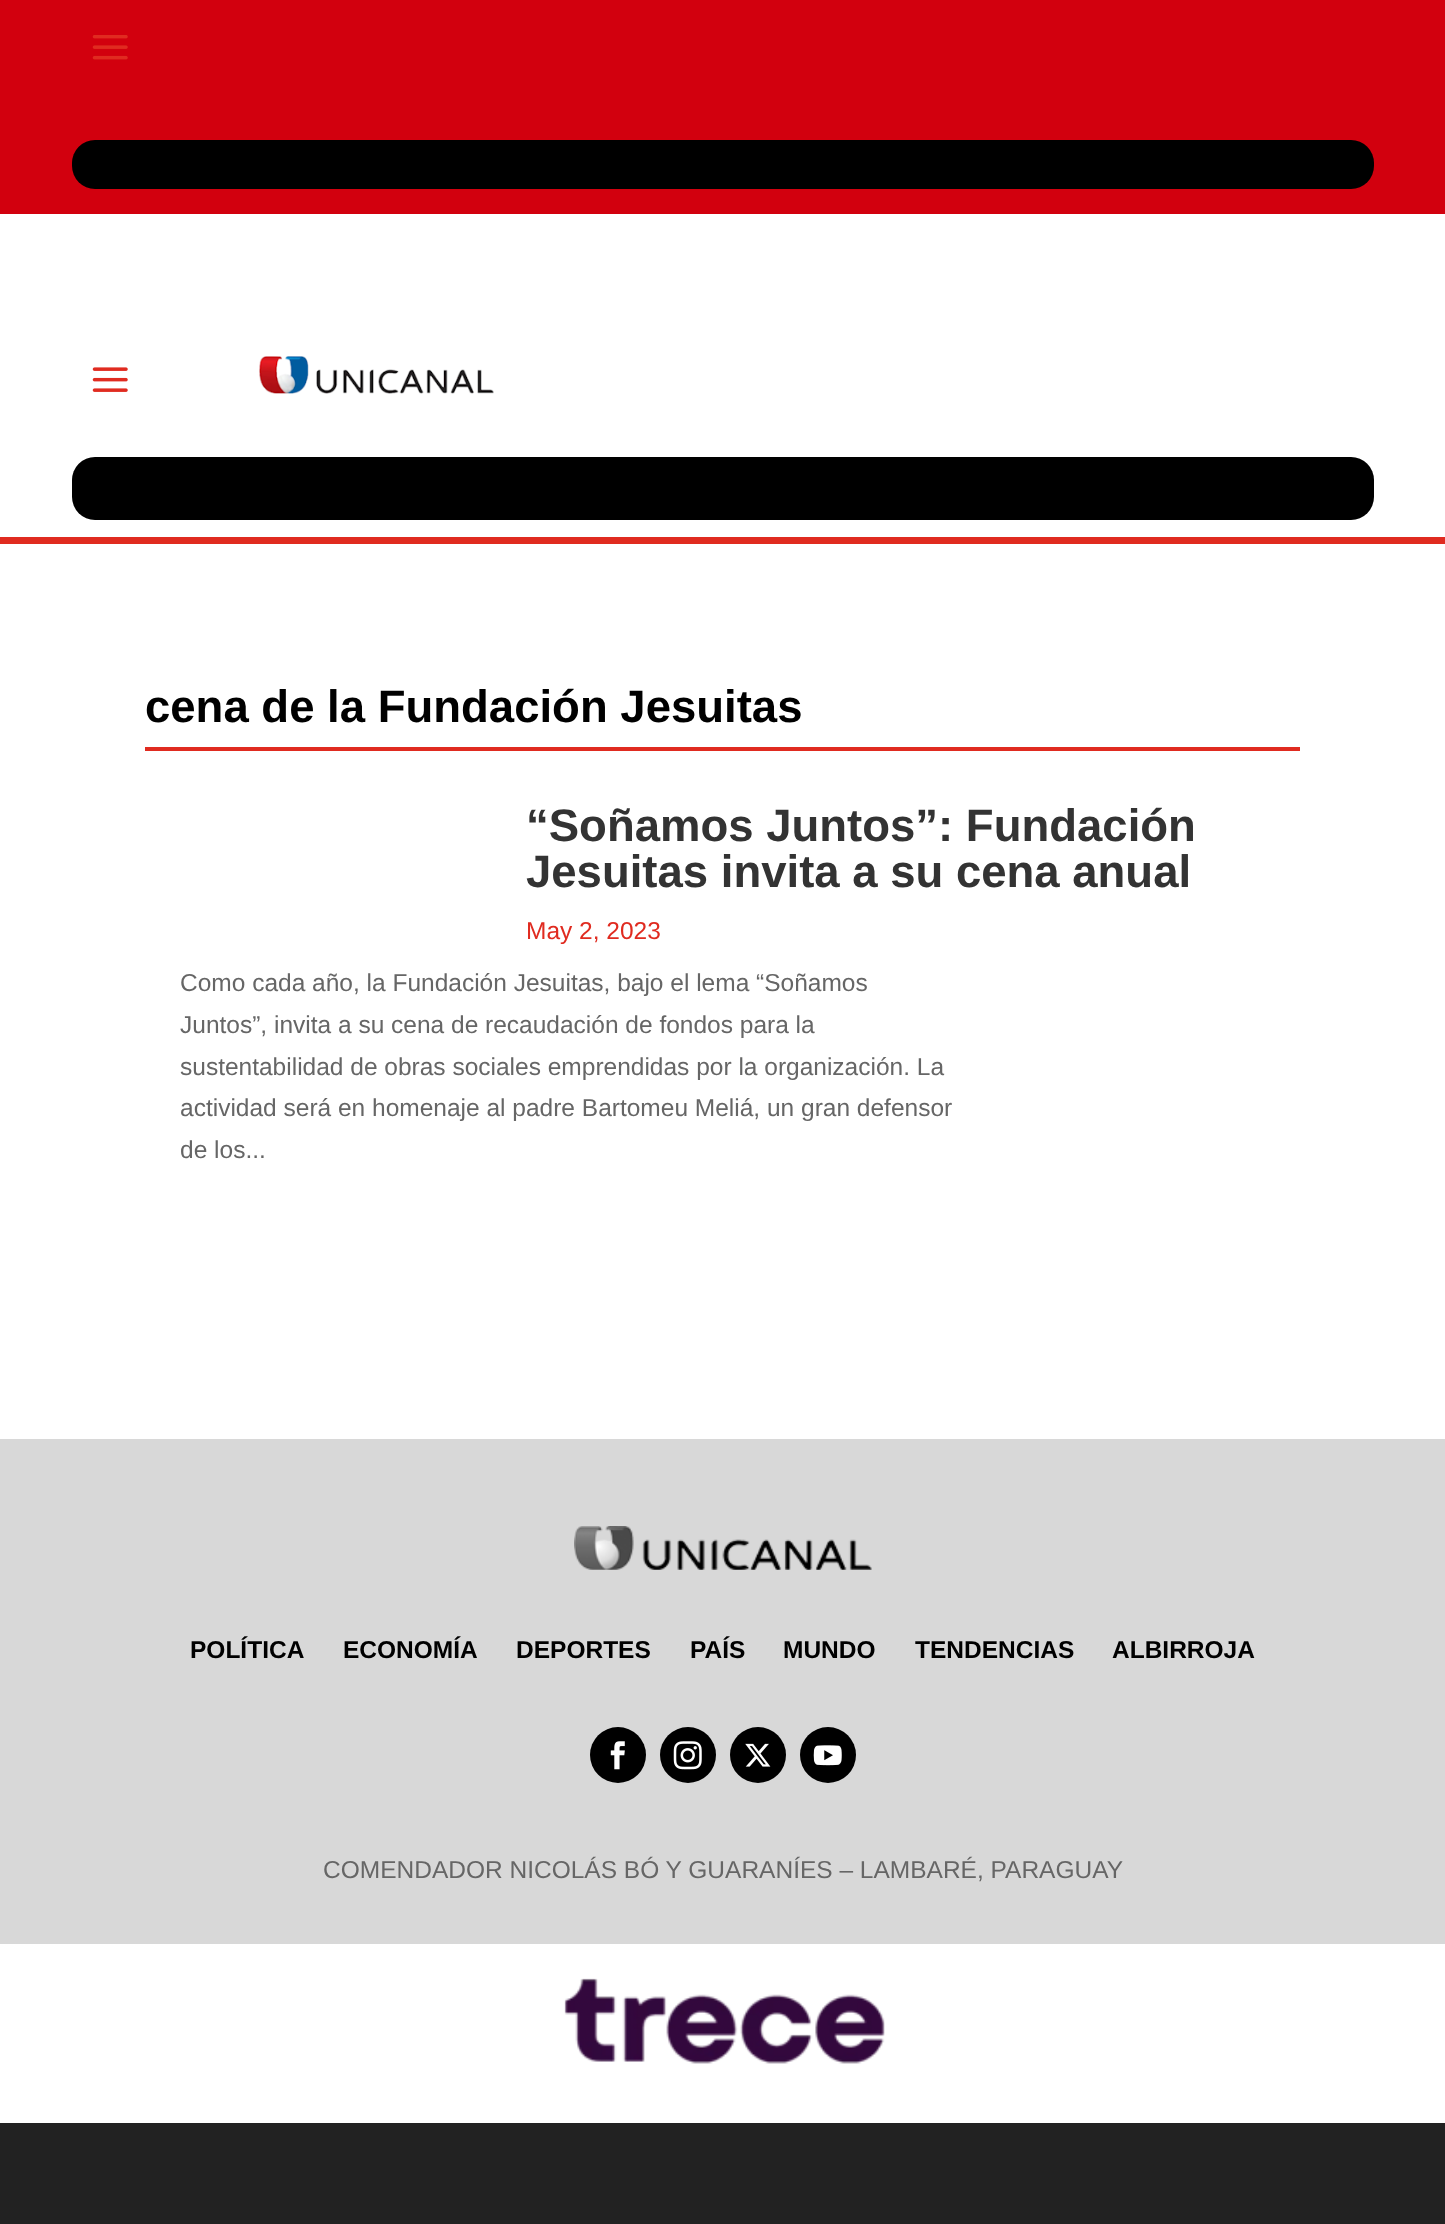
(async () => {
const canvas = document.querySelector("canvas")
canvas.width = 1445
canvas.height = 2224
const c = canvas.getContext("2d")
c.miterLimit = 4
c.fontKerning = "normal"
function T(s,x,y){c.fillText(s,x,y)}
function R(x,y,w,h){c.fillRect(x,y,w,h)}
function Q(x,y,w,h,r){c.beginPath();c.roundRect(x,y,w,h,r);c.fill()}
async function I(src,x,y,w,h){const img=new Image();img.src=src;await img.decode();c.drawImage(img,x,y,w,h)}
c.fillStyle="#222"
R(0,0,1445,2224)
c.fillStyle="#d2000e"
R(0,0,1445,214)
await I("1.png",92,35,36,25)
c.fillStyle="#000"
Q(72,140,1302,49,23)
c.fillStyle="#fff"
R(0,214,1445,323)
c.fillStyle="#e02b20"
R(0,537,1445,7)
await I("2.png",92,367,36,25)
await I("3.png",259,356,235,38)
c.fillStyle="#000"
Q(72,457,1302,63,23)
c.fillStyle="#fff"
R(0,544,1445,895)
c.fillStyle="#e02b20"
R(145,747,1155,4)
c.font="bold 45.5px Liberation Sans"
c.fillStyle="#000"
T("cena de la Fundación Jesuitas",145,722)
c.fillStyle="#333"
T("“Soñamos Juntos”: Fundación",526,841)
T("Jesuitas invita a su cena anual",526,887)
c.font="24.5px Liberation Sans"
c.fillStyle="#e02b20"
T("May 2, 2023",526,939)
c.fillStyle="#666"
T("Como cada año, la Fundación Jesuitas, bajo el lema “Soñamos",180,991)
T("Juntos”, invita a su cena de recaudación de fondos para la",180,1033)
T("sustentabilidad de obras sociales emprendidas por la organización. La",180,1075)
T("actividad será en homenaje al padre Bartomeu Meliá, un gran defensor",180,1116)
T("de los...",180,1158)
c.fillStyle="#d8d8d8"
R(0,1439,1445,505)
await I("4.png",574,1526,298,44)
c.font="bold 24.5px Liberation Sans"
c.fillStyle="#000"
T("POLÍTICA",190,1658)
T("ECONOMÍA",343,1658)
T("DEPORTES",516,1658)
T("PAÍS",690,1658)
T("MUNDO",783,1658)
T("TENDENCIAS",915,1658)
T("ALBIRROJA",1112,1658)
c.beginPath()
c.arc(618,1755,28,0,7)
c.fill()
await I("5.png",610,1741,15,29)
c.beginPath()
c.arc(688,1755,28,0,7)
c.fill()
await I("6.png",673,1741,29,29)
c.beginPath()
c.arc(758,1755,28,0,7)
c.fill()
await I("7.png",745,1743,26,24)
c.beginPath()
c.arc(828,1755,28,0,7)
c.fill()
await I("8.png",813,1745,29,21)
c.font="24.5px Liberation Sans"
c.fillStyle="#666"
T("COMENDADOR NICOLÁS BÓ Y GUARANÍES – LAMBARÉ, PARAGUAY",323,1878)
c.fillStyle="#fff"
R(0,1944,1445,179)
await I("9.png",564,1978,321,86)
})()
